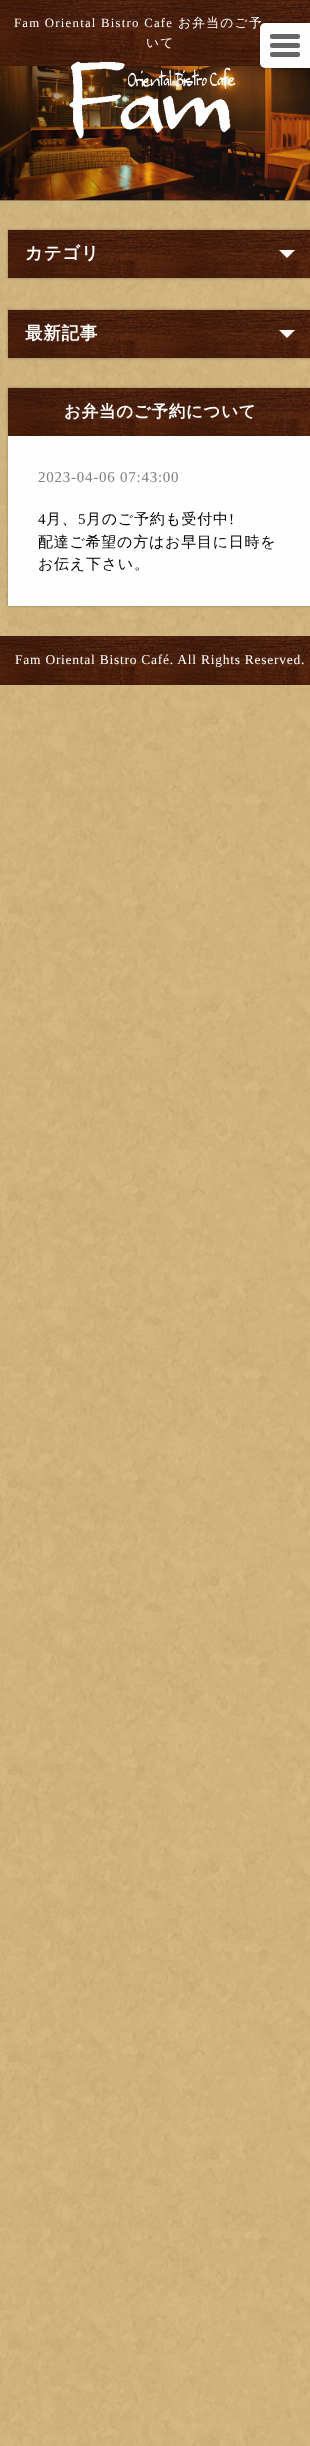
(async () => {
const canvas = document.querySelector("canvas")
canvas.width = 310
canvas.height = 2446
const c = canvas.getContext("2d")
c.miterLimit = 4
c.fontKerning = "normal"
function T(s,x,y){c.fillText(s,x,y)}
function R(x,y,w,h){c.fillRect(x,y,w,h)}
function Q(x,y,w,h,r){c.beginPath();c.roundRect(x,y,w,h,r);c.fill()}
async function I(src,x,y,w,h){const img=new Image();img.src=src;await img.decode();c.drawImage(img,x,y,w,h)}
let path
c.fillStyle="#fff"
R(0,0,310,2446)
await I("1.png",0,200,310,2246)
c.fillStyle="#0000004d"
c.filter="blur(0.5px)"
c.beginPath()
c.rect(0,1,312,200)
c.fill()
c.filter="none"
await I("2.png",0,66,310,134)
await I("3.png",0,0,310,66)
c.letterSpacing="1.25px"
c.font="12.75px Liberation Serif"
c.fillStyle="#fefefe"
T("Fam Oriental Bistro Cafe",14,27)
c.font="500 12.75px WenQuanYi Zen Hei"
T("お弁当のご予",178,27)
T("いて",146,47)
await I("4.png",69,61,167,78)
c.fillStyle="#0000004d"
c.filter="blur(1.5px)"
c.beginPath()
c.roundRect(260,23,50,45,5)
c.fill()
c.filter="none"
c.fillStyle="#fefefe"
c.beginPath()
c.roundRect(260,23,50,45,[5,0,0,5])
c.fill()
c.fillStyle="#666"
Q(270,43,30,5,2)
Q(270,34,30,5,2)
Q(270,52,30,5,2)
c.fillStyle="#0000004d"
c.filter="blur(1.5px)"
c.beginPath()
c.rect(8,230,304,48)
c.fill()
c.filter="none"
await I("5.png",8,230,302,48)
c.letterSpacing="0.75px"
c.font="bold 17.5px WenQuanYi Zen Hei"
c.fillStyle="#fefefe"
T("カテゴリ",25,259)
path = new Path2D("M279 250h16l-8 8z")
c.fill(path)
c.fillStyle="#0000004d"
c.filter="blur(1.5px)"
c.beginPath()
c.rect(8,310,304,48)
c.fill()
c.filter="none"
await I("5.png",8,310,302,48)
c.fillStyle="#fefefe"
T("最新記事",25,339)
path = new Path2D("M279 330h16l-8 8z")
c.fill(path)
c.fillStyle="#0000004d"
c.filter="blur(1.5px)"
c.beginPath()
c.rect(8,388,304,218)
c.fill()
c.filter="none"
c.fillStyle="#fefefe"
R(8,436,302,170)
await I("6.png",8,388,302,48)
c.font="bold 16.5px WenQuanYi Zen Hei"
T("お弁当のご予約について",64,417)
c.font="15px Liberation Serif"
c.fillStyle="#7e7e7e"
T("2023-04-06 07:43:00",38,482)
c.fillStyle="#010101"
T("4",38,524)
c.font="500 15px WenQuanYi Zen Hei"
T("月、",46,524)
c.font="15px Liberation Serif"
T("5",78,524)
c.font="500 15px WenQuanYi Zen Hei"
T("月のご予約も受付中",86,524)
c.font="15px Liberation Serif"
T("!",229,524)
c.font="500 15px WenQuanYi Zen Hei"
T("配達ご希望の方はお早目に日時を",38,547)
T("お伝え下さい。",38,569)
await I("7.png",0,636,310,49)
c.font="13.5px Liberation Serif"
c.fillStyle="#fefefe"
T("Fam Oriental Bistro Café. All Rights Reserved.",15,664)
})()
